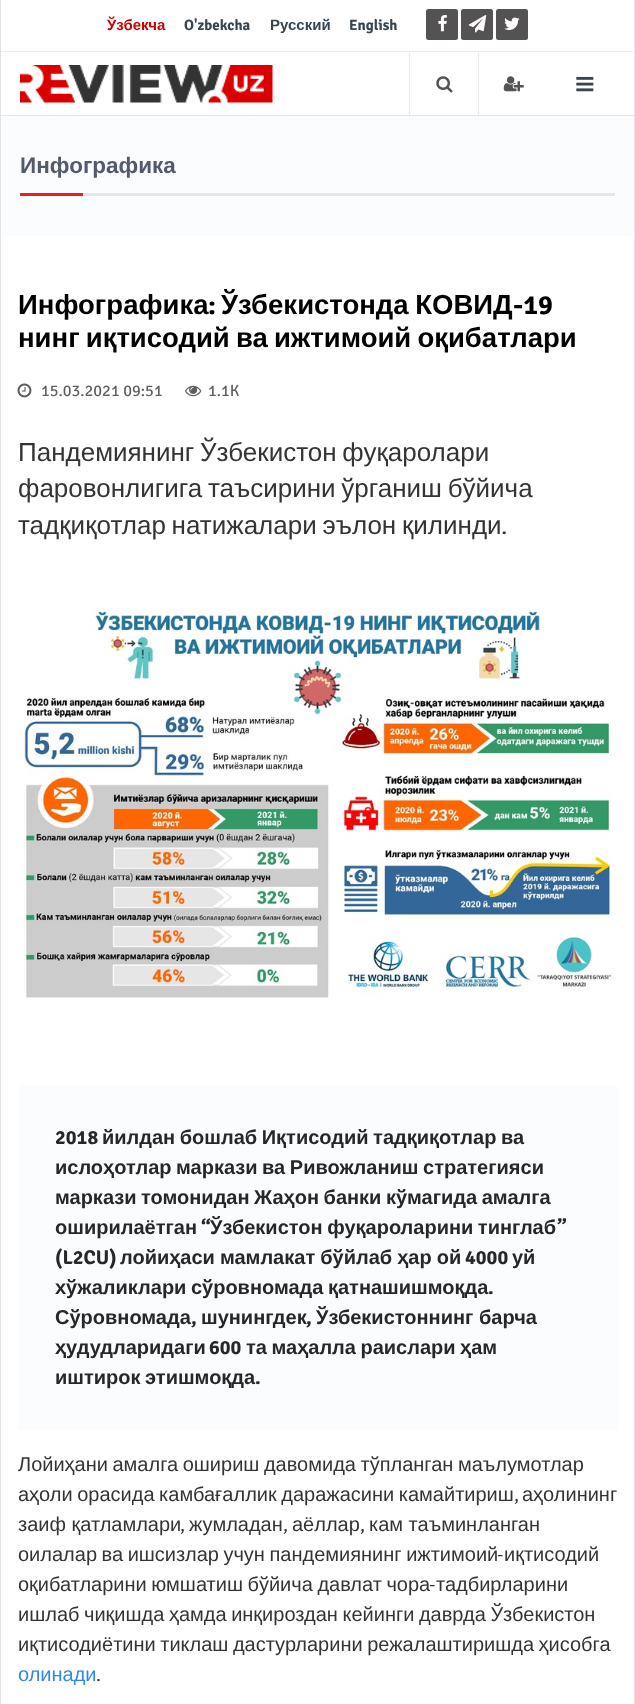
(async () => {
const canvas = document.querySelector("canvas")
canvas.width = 635
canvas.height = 1704
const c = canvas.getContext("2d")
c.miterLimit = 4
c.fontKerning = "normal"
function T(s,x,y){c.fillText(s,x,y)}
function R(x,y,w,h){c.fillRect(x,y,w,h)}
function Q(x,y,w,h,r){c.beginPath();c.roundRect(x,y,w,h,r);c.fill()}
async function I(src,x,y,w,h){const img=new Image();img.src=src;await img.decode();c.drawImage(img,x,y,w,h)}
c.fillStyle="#fbfcfe"
R(0,0,635,1704)
c.fillStyle="#e4e4e4"
R(634,0,1,1704)
R(0,0,1,1704)
c.fillStyle="#fff"
R(1,0,633,115)
c.fillStyle="#e6e6e6"
R(1,115,633,1)
c.fillStyle="#eee"
R(1,51,633,1)
c.font="bold 15px Liberation Sans"
c.fillStyle="#cb0000"
T("Ўзбекча",107,30)
c.font="bold 15px Signika Negative"
c.fillStyle="#384650"
T("O'zbekcha",184,30)
c.font="bold 15px Liberation Sans"
T("Русский",270,30)
c.font="bold 15px Signika Negative"
T("English",349,30)
c.fillStyle="#555254"
Q(426,9,32,31,2.5)
await I("1.png",438,15,9,17)
Q(461,9,32,31,2.5)
await I("2.png",468,15,19,18)
Q(496,9,32,31,2.5)
await I("3.png",504,17,16,13)
await I("4.png",20,65,253,38)
c.fillStyle="#ebecee"
R(409,53,1,62)
await I("5.png",436,76,17,17)
R(478,53,1,62)
await I("6.png",503,76,21,16)
await I("7.png",576,76,18,16)
c.font="bold 22.5px Liberation Sans"
c.fillStyle="#525b6e"
T("Инфографика",20,173)
c.fillStyle="#ed1c24"
R(20,193,63,3)
c.fillStyle="#e6e6e8"
R(83,193,532,3)
c.fillStyle="#fff"
Q(3,236,630,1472,4)
c.font="bold 27.5px Liberation Sans"
c.fillStyle="#000"
T("Инфографика",18,314)
c.font="bold 27.5px Signika Negative"
T(":",208,314)
c.wordSpacing="-1px"
c.font="bold 27.5px Liberation Sans"
T("Ўзбекистонда КОВИД",221,314)
c.wordSpacing="0px"
c.font="bold 27.5px Signika Negative"
T("-19",513,314)
c.wordSpacing="-1.5px"
c.font="bold 27.5px Liberation Sans"
T("нинг иқтисодий ва ижтимоий оқибатлари",18,347)
await I("8.png",17,383,15,15)
c.wordSpacing="0px"
c.font="16.25px Signika Negative"
c.fillStyle="#5f5e5e"
T("15.03.2021 09:51",41,396)
await I("9.png",185,385,17,12)
T("1.1K",208,396)
c.wordSpacing="-1.5px"
c.font="26px Liberation Sans"
c.fillStyle="#343434"
T("Пандемиянинг Ўзбекистон фуқаролари",18,461)
T("фаровонлигига таъсирини ўрганиш бўйича",18,497)
T("тадқиқотлар натижалари эълон қилинди",18,534)
c.wordSpacing="0px"
c.font="300 26px Signika Negative"
T(".",501,534)
await I("10.png",23,606,590,392)
c.fillStyle="#fbfcfe"
R(18,1085,600,345)
c.font="bold 20px Signika Negative"
c.fillStyle="#272727"
T("2018",55,1144)
c.wordSpacing="-1px"
c.font="bold 20px Liberation Sans"
T("йилдан бошлаб Иқтисодий тадқиқотлар ва",102,1144)
T("ислоҳотлар маркази ва Ривожланиш стратегияси",55,1174)
T("маркази томонидан Жаҳон банки кўмагида амалга",55,1204)
c.wordSpacing="0px"
T("оширилаётган",55,1234)
c.font="bold 20px Signika Negative"
T("“",201,1234)
c.wordSpacing="-1px"
c.font="bold 20px Liberation Sans"
T("Ўзбекистон фуқароларини тинглаб",210,1234)
c.wordSpacing="0px"
c.font="bold 20px Signika Negative"
T("”",557,1234)
T("(L2CU)",55,1264)
c.wordSpacing="-0.5px"
c.font="bold 20px Liberation Sans"
T("лойиҳаси мамлакат бўйлаб ҳар ой",120,1264)
c.wordSpacing="0px"
c.font="bold 20px Signika Negative"
T("4000",465,1264)
c.font="bold 20px Liberation Sans"
T("уй",512,1264)
c.wordSpacing="-1px"
T("хўжаликлари сўровномада қатнашишмоқда",55,1294)
c.wordSpacing="0px"
c.font="bold 20px Signika Negative"
T(".",488,1294)
c.font="bold 20px Liberation Sans"
T("Сўровномада",55,1324)
c.font="bold 20px Signika Negative"
T(",",191,1324)
c.font="bold 20px Liberation Sans"
T("шунингдек",201,1324)
c.font="bold 20px Signika Negative"
T(",",306,1324)
c.font="bold 20px Liberation Sans"
T("Ўзбекистоннинг барча",316,1324)
T("ҳудудларидаги",55,1354)
c.font="bold 20px Signika Negative"
T("600",209,1354)
c.wordSpacing="-1px"
c.font="bold 20px Liberation Sans"
T("та маҳалла раислари ҳам",246,1354)
T("иштирок этишмоқда",55,1384)
c.wordSpacing="0px"
c.font="bold 20px Signika Negative"
T(".",255,1384)
c.wordSpacing="-1px"
c.font="20px Liberation Sans"
c.fillStyle="#343434"
T("Лойиҳани амалга ошириш давомида тўпланган маълумотлар",18,1471)
T("аҳоли орасида камбағаллик даражасини камайтириш",18,1501)
c.wordSpacing="0px"
c.font="300 20px Signika Negative"
T(",",514,1501)
c.font="20px Liberation Sans"
T("аҳолининг",522,1501)
T("заиф қатламлари",18,1531)
c.font="300 20px Signika Negative"
T(",",180,1531)
c.font="20px Liberation Sans"
T("жумладан",189,1531)
c.font="300 20px Signika Negative"
T(",",283,1531)
c.font="20px Liberation Sans"
T("аёллар",292,1531)
c.font="300 20px Signika Negative"
T(",",360,1531)
c.font="20px Liberation Sans"
T("кам таъминланган",369,1531)
c.wordSpacing="-1px"
T("оилалар ва ишсизлар учун пандемиянинг ижтимоий",18,1561)
c.wordSpacing="0px"
c.font="300 20px Signika Negative"
T("-",497,1561)
c.font="20px Liberation Sans"
T("иқтисодий",504,1561)
c.wordSpacing="-1px"
T("оқибатларини юмшатиш бўйича давлат чора",18,1591)
c.wordSpacing="0px"
c.font="300 20px Signika Negative"
T("-",429,1591)
c.font="20px Liberation Sans"
T("тадбирларини",436,1591)
c.wordSpacing="-1px"
T("ишлаб чиқишда ҳамда инқироздан кейинги даврда Ўзбекистон",18,1621)
T("иқтисодиётини тиклаш дастурларини режалаштиришда ҳисобга",18,1651)
c.wordSpacing="0px"
c.fillStyle="#3288ea"
T("олинади",18,1681)
c.font="300 20px Signika Negative"
c.fillStyle="#343434"
T(".",96,1681)
})()
